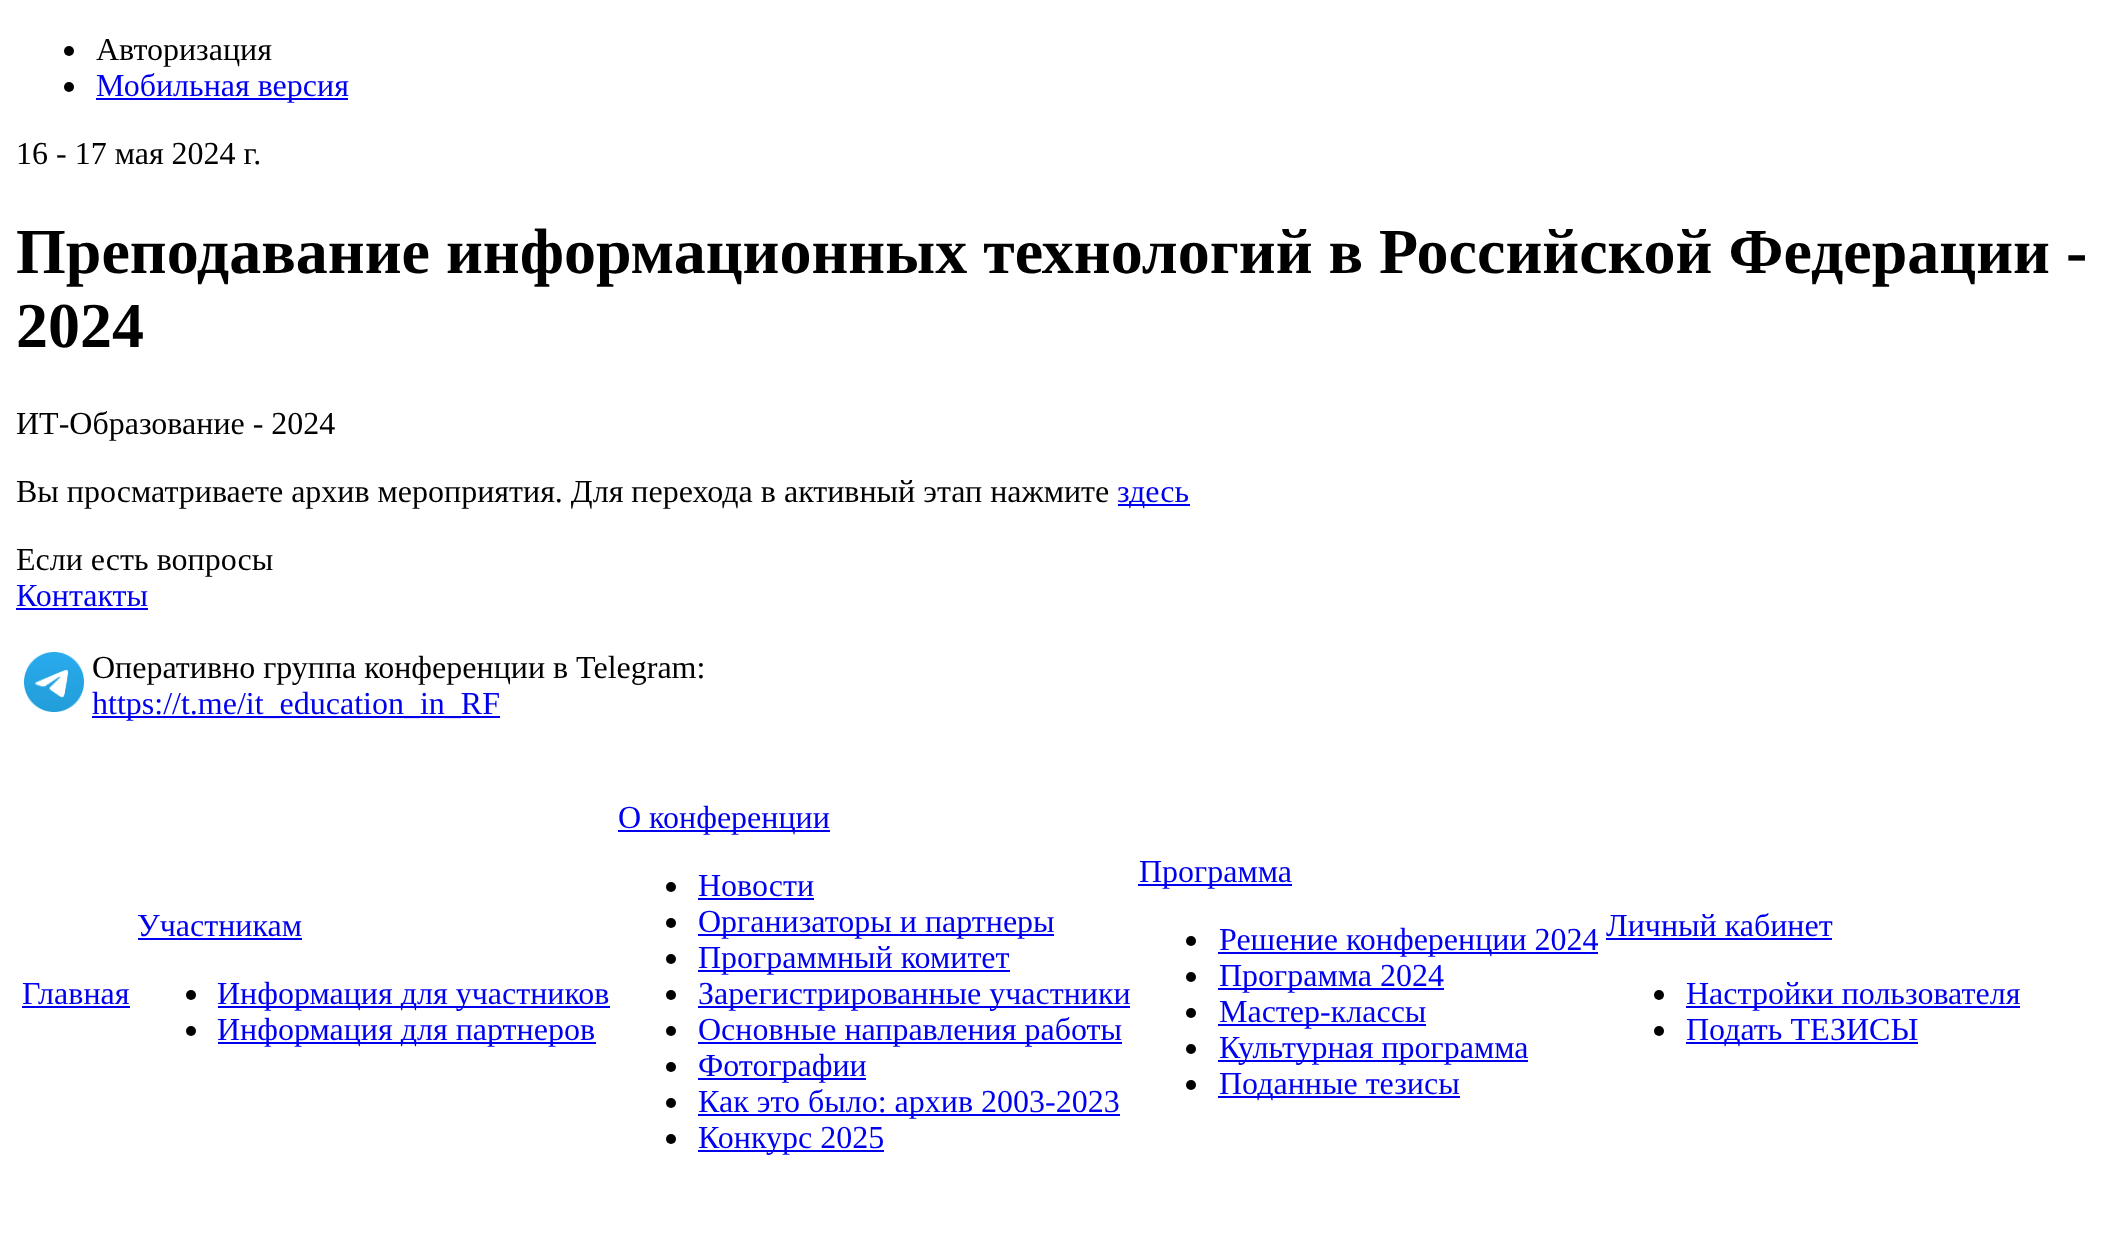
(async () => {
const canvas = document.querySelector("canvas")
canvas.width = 2113
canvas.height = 1240
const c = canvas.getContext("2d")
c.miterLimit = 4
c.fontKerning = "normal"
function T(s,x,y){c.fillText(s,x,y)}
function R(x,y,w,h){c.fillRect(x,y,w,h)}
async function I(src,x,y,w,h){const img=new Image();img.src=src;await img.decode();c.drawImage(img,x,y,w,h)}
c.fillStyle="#fff"
R(0,0,2113,1240)
c.fillStyle="#000"
c.beginPath()
c.arc(69,51,5,0,7)
c.fill()
c.font="32px Liberation Serif"
T("Авторизация",96,60)
c.beginPath()
c.arc(69,87,5,0,7)
c.fill()
c.fillStyle="#00e"
R(96,98,252,2)
T("Мобильная версия",96,96)
c.fillStyle="#000"
T("16 - 17 мая 2024 г.",16,164)
c.font="bold 64px Liberation Serif"
T("Преподавание информационных технологий в Российской Федерации -",16,273)
T("2024",16,347)
c.font="32px Liberation Serif"
T("ИТ-Образование - 2024",16,434)
T("Вы просматриваете архив мероприятия. Для перехода в активный этап нажмите",16,502)
c.fillStyle="#00e"
R(1118,504,72,2)
T("здесь",1117,502)
c.fillStyle="#000"
T("Если есть вопросы",16,570)
c.fillStyle="#00e"
T("Контакты",16,606)
R(16,608,132,2)
await I("1.png",24,652,60,60)
c.fillStyle="#000"
T("Оперативно группа конференции в Telegram:",92,678)
c.fillStyle="#00e"
R(92,716,408,2)
T("https://t.me/it_education_in_RF",92,714)
T("Главная",22,1004)
R(22,1006,108,2)
T("Участникам",137,936)
R(138,938,164,2)
c.fillStyle="#000"
c.beginPath()
c.arc(191,995,5,0,7)
c.fill()
c.fillStyle="#00e"
R(218,1006,392,2)
T("Информация для участников",217,1004)
c.fillStyle="#000"
c.beginPath()
c.arc(191,1031,5,0,7)
c.fill()
c.fillStyle="#00e"
R(218,1042,378,2)
T("Информация для партнеров",217,1040)
R(618,830,212,2)
T("О конференции",618,828)
c.fillStyle="#000"
c.beginPath()
c.arc(671,887,5,0,7)
c.fill()
c.fillStyle="#00e"
T("Новости",698,896)
R(698,898,116,2)
c.fillStyle="#000"
c.beginPath()
c.arc(671,923,5,0,7)
c.fill()
c.fillStyle="#00e"
R(698,934,356,2)
T("Организаторы и партнеры",698,932)
c.fillStyle="#000"
c.beginPath()
c.arc(671,959,5,0,7)
c.fill()
c.fillStyle="#00e"
R(698,970,312,2)
T("Программный комитет",698,968)
c.fillStyle="#000"
c.beginPath()
c.arc(671,995,5,0,7)
c.fill()
c.fillStyle="#00e"
R(698,1006,432,2)
T("Зарегистрированные участники",698,1004)
c.fillStyle="#000"
c.beginPath()
c.arc(671,1031,5,0,7)
c.fill()
c.fillStyle="#00e"
R(698,1042,424,2)
T("Основные направления работы",698,1040)
c.fillStyle="#000"
c.beginPath()
c.arc(671,1067,5,0,7)
c.fill()
c.fillStyle="#00e"
R(698,1078,168,2)
T("Фотографии",698,1076)
c.fillStyle="#000"
c.beginPath()
c.arc(671,1103,5,0,7)
c.fill()
c.fillStyle="#00e"
R(698,1114,422,2)
T("Как это было: архив 2003-2023",698,1112)
c.fillStyle="#000"
c.beginPath()
c.arc(671,1139,5,0,7)
c.fill()
c.fillStyle="#00e"
R(698,1150,186,2)
T("Конкурс 2025",698,1148)
R(1138,884,154,2)
T("Программа",1139,882)
c.fillStyle="#000"
c.beginPath()
c.arc(1191,941,5,0,7)
c.fill()
c.fillStyle="#00e"
R(1218,952,380,2)
T("Решение конференции 2024",1219,950)
c.fillStyle="#000"
c.beginPath()
c.arc(1191,977,5,0,7)
c.fill()
c.fillStyle="#00e"
R(1218,988,226,2)
T("Программа 2024",1219,986)
c.fillStyle="#000"
c.beginPath()
c.arc(1191,1013,5,0,7)
c.fill()
c.fillStyle="#00e"
R(1218,1024,208,2)
T("Мастер-классы",1219,1022)
c.fillStyle="#000"
c.beginPath()
c.arc(1191,1049,5,0,7)
c.fill()
c.fillStyle="#00e"
R(1218,1060,310,2)
T("Культурная программа",1219,1058)
c.fillStyle="#000"
c.beginPath()
c.arc(1191,1085,5,0,7)
c.fill()
c.fillStyle="#00e"
R(1218,1096,242,2)
T("Поданные тезисы",1219,1094)
T("Личный кабинет",1606,936)
R(1606,938,226,2)
c.fillStyle="#000"
c.beginPath()
c.arc(1659,995,5,0,7)
c.fill()
c.fillStyle="#00e"
R(1686,1006,334,2)
T("Настройки пользователя",1686,1004)
c.fillStyle="#000"
c.beginPath()
c.arc(1659,1031,5,0,7)
c.fill()
c.fillStyle="#00e"
R(1686,1042,232,2)
T("Подать ТЕЗИСЫ",1686,1040)
})()
